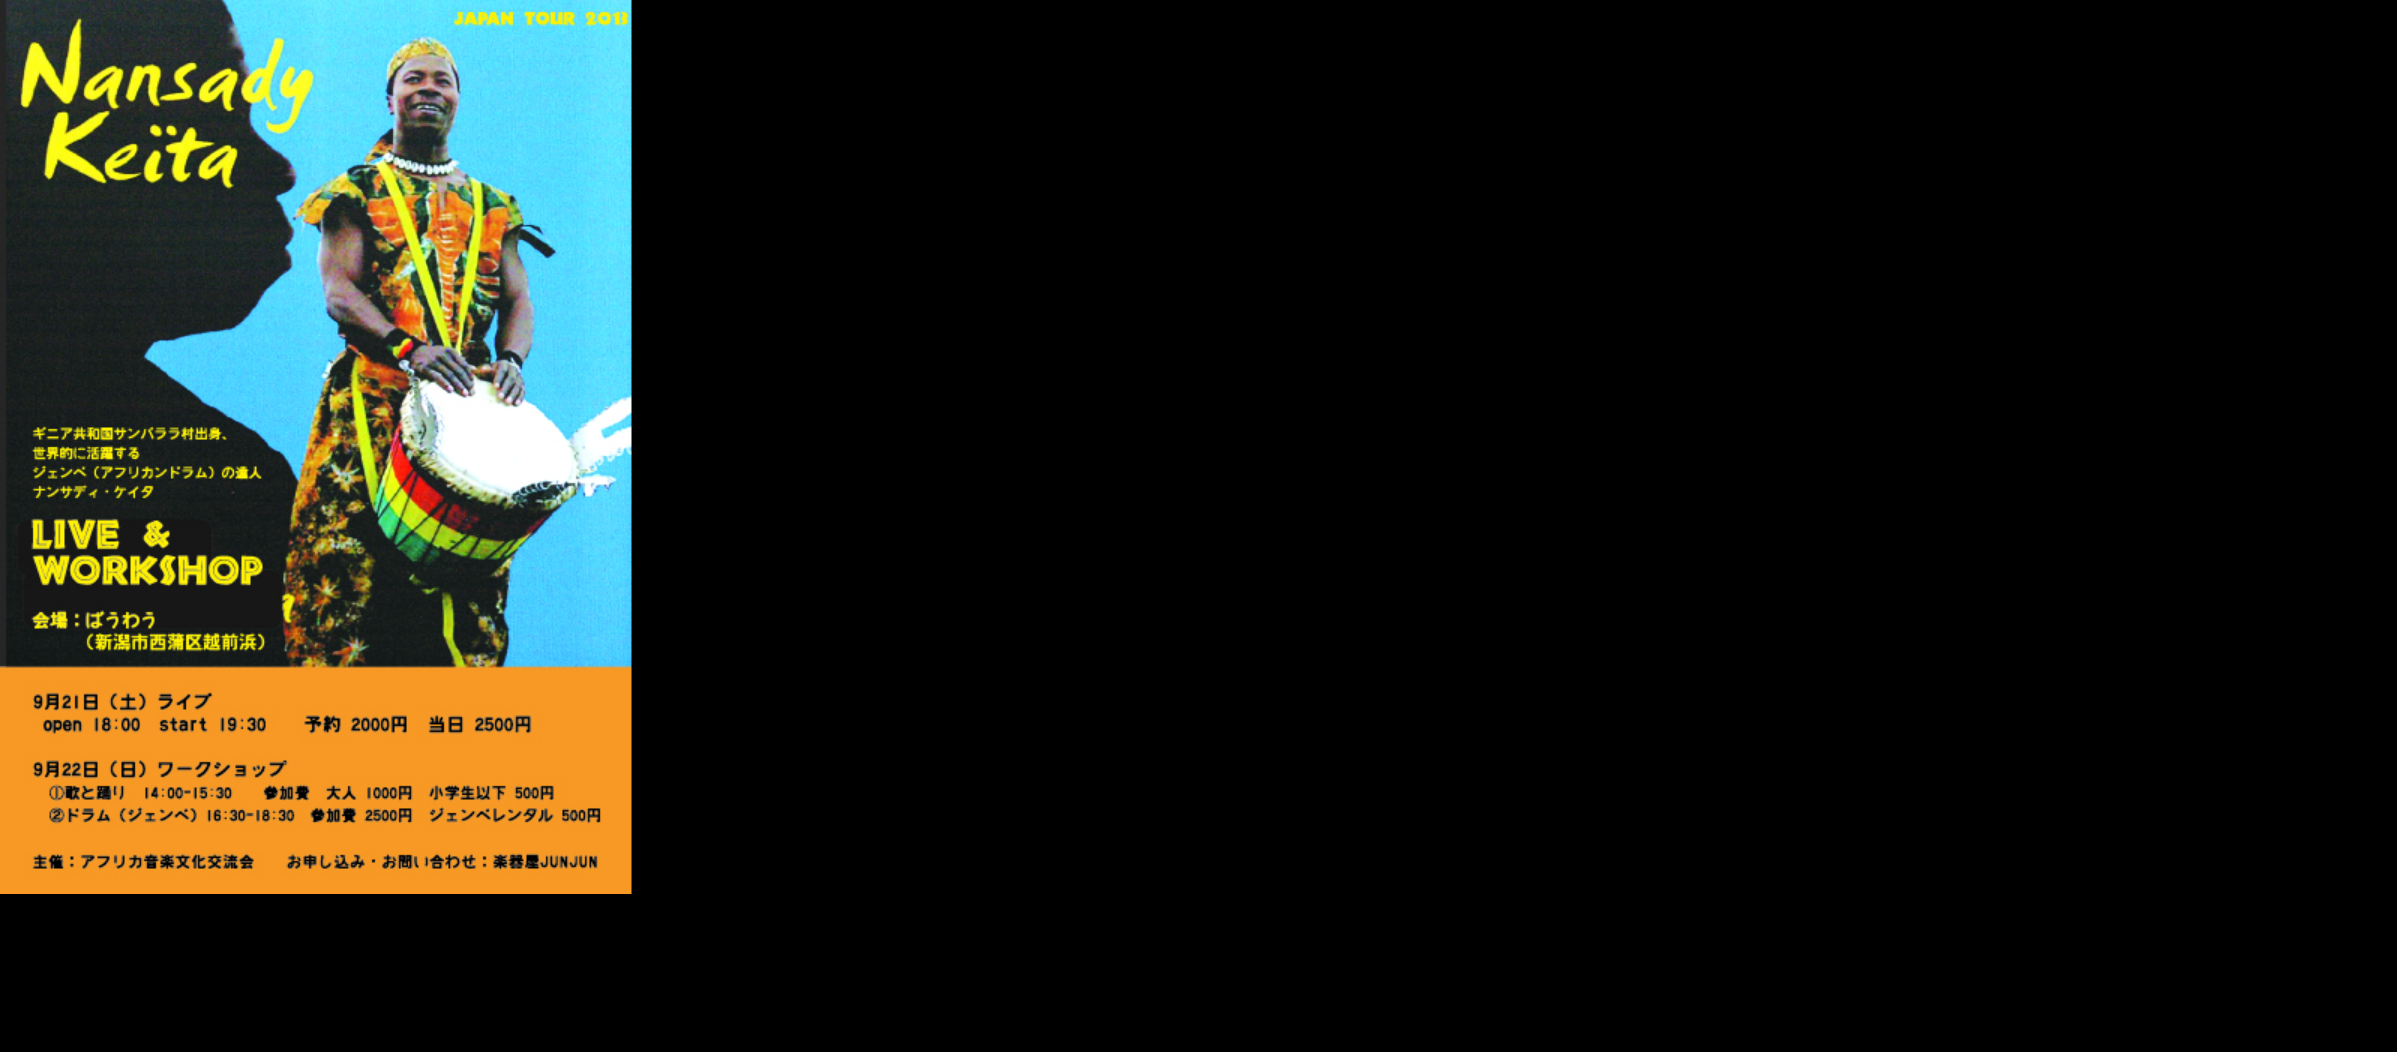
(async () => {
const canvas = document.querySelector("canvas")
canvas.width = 2397
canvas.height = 1052
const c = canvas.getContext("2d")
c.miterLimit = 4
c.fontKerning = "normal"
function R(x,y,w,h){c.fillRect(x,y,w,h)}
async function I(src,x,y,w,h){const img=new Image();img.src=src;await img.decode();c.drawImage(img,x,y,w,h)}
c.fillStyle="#000"
R(0,0,2397,1052)
await I("1.png",0,0,632,894)
})()
